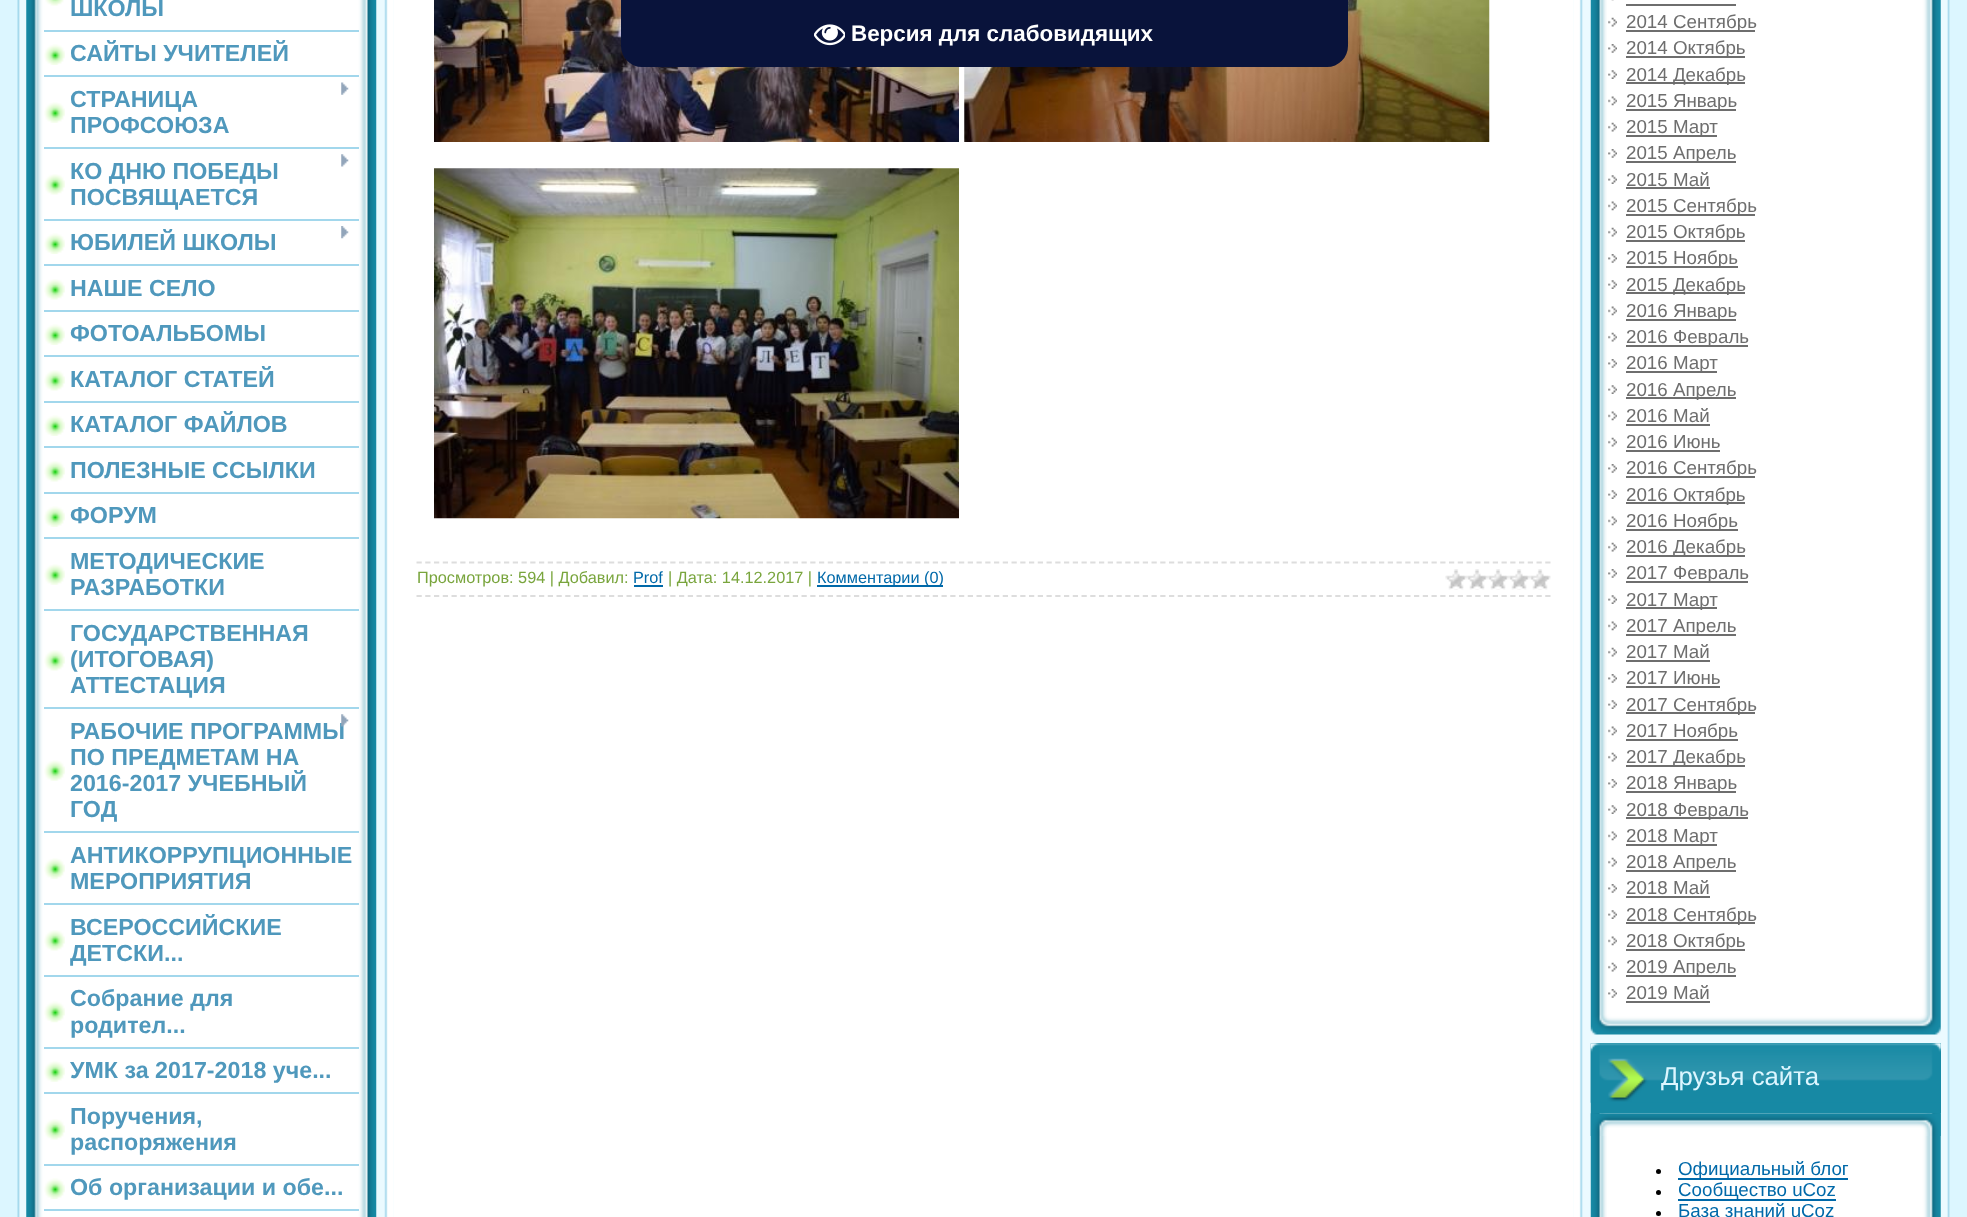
(async () => {
const canvas = document.querySelector("canvas")
canvas.width = 1967
canvas.height = 1217
const c = canvas.getContext("2d")
c.miterLimit = 4
c.fontKerning = "normal"
function T(s,x,y){c.fillText(s,x,y)}
function R(x,y,w,h){c.fillRect(x,y,w,h)}
async function I(src,x,y,w,h){const img=new Image();img.src=src;await img.decode();c.drawImage(img,x,y,w,h)}
let path
c.fillStyle="#dcf6ff"
R(0,0,1967,1217)
c.fillStyle="#ebfaff"
R(393,0,1557,1217)
await I("1.png",17,0,377,1217)
await I("2.png",26,0,351,1217)
await I("3.png",45,0,19,6)
c.fillStyle="#a2d7ec"
R(44,30,315,2)
c.font="bold 23.25px Liberation Sans"
c.fillStyle="#4f98bc"
T("ШКОЛЫ",70,16)
await I("4.png",44,44,21,21)
c.fillStyle="#a2d7ec"
R(44,75,315,2)
c.fillStyle="#4f98bc"
T("САЙТЫ УЧИТЕЛЕЙ",70,61)
await I("5.png",44,102,21,21)
c.fillStyle="#a2d7ec"
R(44,147,315,2)
await I("6.png",341,82,8,13)
c.fillStyle="#4f98bc"
T("СТРАНИЦА",70,107)
T("ПРОФСОЮЗА",70,133)
await I("7.png",44,174,21,21)
c.fillStyle="#a2d7ec"
R(44,219,315,2)
await I("8.png",341,154,8,13)
c.fillStyle="#4f98bc"
T("КО ДНЮ ПОБЕДЫ",70,179)
T("ПОСВЯЩАЕТСЯ",70,205)
await I("4.png",44,233,21,21)
c.fillStyle="#a2d7ec"
R(44,264,315,2)
c.fillStyle="#4f98bc"
T("ЮБИЛЕЙ ШКОЛЫ",70,250)
await I("9.png",341,226,8,13)
await I("7.png",44,279,21,21)
c.fillStyle="#a2d7ec"
R(44,310,315,2)
c.fillStyle="#4f98bc"
T("НАШЕ СЕЛО",70,296)
await I("4.png",44,324,21,21)
c.fillStyle="#a2d7ec"
R(44,355,315,2)
c.fillStyle="#4f98bc"
T("ФОТОАЛЬБОМЫ",70,341)
await I("7.png",44,370,21,21)
c.fillStyle="#a2d7ec"
R(44,401,315,2)
c.fillStyle="#4f98bc"
T("КАТАЛОГ СТАТЕЙ",70,387)
await I("4.png",44,415,21,21)
c.fillStyle="#a2d7ec"
R(44,446,315,2)
c.fillStyle="#4f98bc"
T("КАТАЛОГ ФАЙЛОВ",70,432)
await I("7.png",44,461,21,21)
c.fillStyle="#a2d7ec"
R(44,492,315,2)
c.fillStyle="#4f98bc"
T("ПОЛЕЗНЫЕ ССЫЛКИ",70,478)
await I("4.png",44,506,21,21)
c.fillStyle="#a2d7ec"
R(44,537,315,2)
c.fillStyle="#4f98bc"
T("ФОРУМ",70,523)
await I("5.png",44,564,21,21)
c.fillStyle="#a2d7ec"
R(44,609,315,2)
c.fillStyle="#4f98bc"
T("МЕТОДИЧЕСКИЕ",70,569)
T("РАЗРАБОТКИ",70,595)
await I("7.png",44,650,21,21)
c.fillStyle="#a2d7ec"
R(44,707,315,2)
c.fillStyle="#4f98bc"
T("ГОСУДАРСТВЕННАЯ",70,641)
T("(ИТОГОВАЯ)",70,667)
T("АТТЕСТАЦИЯ",70,693)
await I("5.png",44,760,21,21)
c.fillStyle="#a2d7ec"
R(44,831,315,2)
c.fillStyle="#4f98bc"
T("РАБОЧИЕ ПРОГРАММЫ",70,739)
await I("10.png",341,714,8,13)
T("ПО ПРЕДМЕТАМ НА",70,765)
T("2016-2017 УЧЕБНЫЙ",70,791)
T("ГОД",70,817)
await I("5.png",44,858,21,21)
c.fillStyle="#a2d7ec"
R(44,903,315,2)
c.fillStyle="#4f98bc"
T("АНТИКОРРУПЦИОННЫЕ",70,863)
T("МЕРОПРИЯТИЯ",70,889)
await I("7.png",44,930,21,21)
c.fillStyle="#a2d7ec"
R(44,975,315,2)
c.fillStyle="#4f98bc"
T("ВСЕРОССИЙСКИЕ",70,935)
T("ДЕТСКИ...",70,961)
await I("11.png",44,1001,21,22)
c.fillStyle="#a2d7ec"
R(44,1047,315,2)
c.fillStyle="#4f98bc"
T("Собрание для",70,1006)
T("родител...",70,1033)
await I("5.png",44,1061,21,21)
c.fillStyle="#a2d7ec"
R(44,1092,315,2)
c.fillStyle="#4f98bc"
T("УМК за 2017-2018 уче...",70,1078)
await I("7.png",44,1119,21,21)
c.fillStyle="#a2d7ec"
R(44,1164,315,2)
c.fillStyle="#4f98bc"
T("Поручения,",70,1124)
T("распоряжения",70,1150)
await I("4.png",44,1178,21,21)
c.fillStyle="#a2d7ec"
R(44,1209,315,2)
c.fillStyle="#4f98bc"
T("Об организации и обе...",70,1195)
c.fillStyle="#fff"
R(394,0,1179,1217)
await I("12.png",434,0,525,142)
await I("13.png",964,0,526,142)
await I("14.png",434,168,525,351)
path = new Path2D("M416.5 562.5h1134")
c.strokeStyle="#ddd"
c.lineWidth=1.8
c.setLineDash([5.25,3.5])
c.stroke(path)
path = new Path2D("M416.5 596h1134")
c.stroke(path)
c.font="16.3px Liberation Sans"
c.fillStyle="#79a53d"
T("Просмотров: 594 | Добавил:",417,583)
c.fillStyle="#0069a9"
T("Prof",633,583)
R(634,585,29,2)
c.fillStyle="#79a53d"
T("| Дата: 14.12.2017 |",668,583)
c.fillStyle="#0069a9"
R(817,585,126,2)
T("Комментарии (0)",817,583)
await I("15.png",1445,569,106,21)
await I("16.png",1573,0,377,1217)
await I("17.png",1590,0,351,1035)
await I("18.png",1611,0,3,1)
c.fillStyle="#6e6e6e"
R(1626,4,110,2)
await I("19.png",1608,17,9,10)
R(1626,30,129,2)
c.font="18.75px Liberation Sans"
T("2014 Сентябрь",1626,28)
await I("20.png",1608,44,9,9)
R(1626,56,119,2)
T("2014 Октябрь",1626,54)
await I("21.png",1608,70,9,9)
R(1626,82,119,2)
T("2014 Декабрь",1626,81)
await I("22.png",1608,96,9,10)
R(1626,109,110,2)
T("2015 Январь",1626,107)
await I("19.png",1608,122,9,10)
R(1626,135,91,2)
T("2015 Март",1626,133)
await I("20.png",1608,149,9,9)
R(1626,161,110,2)
T("2015 Апрель",1626,159)
await I("21.png",1608,175,9,9)
T("2015 Май",1626,186)
R(1626,187,84,2)
await I("22.png",1608,201,9,10)
R(1626,214,129,2)
T("2015 Сентябрь",1626,212)
await I("19.png",1608,227,9,10)
R(1626,240,119,2)
T("2015 Октябрь",1626,238)
await I("20.png",1608,254,9,9)
R(1626,266,112,2)
T("2015 Ноябрь",1626,264)
await I("21.png",1608,280,9,9)
R(1626,292,119,2)
T("2015 Декабрь",1626,291)
await I("22.png",1608,306,9,10)
R(1626,319,110,2)
T("2016 Январь",1626,317)
await I("19.png",1608,332,9,10)
R(1626,345,122,2)
T("2016 Февраль",1626,343)
await I("20.png",1608,359,9,9)
R(1626,371,91,2)
T("2016 Март",1626,369)
await I("21.png",1608,385,9,9)
R(1626,397,110,2)
T("2016 Апрель",1626,396)
await I("22.png",1608,411,9,10)
T("2016 Май",1626,422)
R(1626,424,84,2)
await I("19.png",1608,437,9,10)
T("2016 Июнь",1626,448)
R(1626,450,94,2)
await I("20.png",1608,464,9,9)
R(1626,476,129,2)
T("2016 Сентябрь",1626,474)
await I("21.png",1608,490,9,9)
R(1626,502,119,2)
T("2016 Октябрь",1626,501)
await I("22.png",1608,516,9,10)
R(1626,529,112,2)
T("2016 Ноябрь",1626,527)
await I("19.png",1608,542,9,10)
R(1626,555,119,2)
T("2016 Декабрь",1626,553)
await I("20.png",1608,569,9,9)
R(1626,581,122,2)
T("2017 Февраль",1626,579)
await I("21.png",1608,595,9,9)
R(1626,607,91,2)
T("2017 Март",1626,606)
await I("22.png",1608,621,9,10)
R(1626,634,110,2)
T("2017 Апрель",1626,632)
await I("19.png",1608,647,9,10)
T("2017 Май",1626,658)
R(1626,660,84,2)
await I("20.png",1608,674,9,9)
T("2017 Июнь",1626,684)
R(1626,686,94,2)
await I("21.png",1608,700,9,9)
R(1626,712,129,2)
T("2017 Сентябрь",1626,711)
await I("22.png",1608,726,9,10)
R(1626,739,112,2)
T("2017 Ноябрь",1626,737)
await I("19.png",1608,752,9,10)
R(1626,765,119,2)
T("2017 Декабрь",1626,763)
await I("20.png",1608,779,9,9)
R(1626,791,110,2)
T("2018 Январь",1626,789)
await I("21.png",1608,805,9,9)
R(1626,817,122,2)
T("2018 Февраль",1626,816)
await I("22.png",1608,831,9,10)
R(1626,844,91,2)
T("2018 Март",1626,842)
await I("19.png",1608,857,9,10)
R(1626,870,110,2)
T("2018 Апрель",1626,868)
await I("20.png",1608,884,9,9)
T("2018 Май",1626,894)
R(1626,896,84,2)
await I("21.png",1608,910,9,9)
R(1626,922,129,2)
T("2018 Сентябрь",1626,921)
await I("22.png",1608,936,9,10)
R(1626,949,119,2)
T("2018 Октябрь",1626,947)
await I("19.png",1608,962,9,10)
R(1626,975,110,2)
T("2019 Апрель",1626,973)
await I("20.png",1608,989,9,9)
T("2019 Май",1626,999)
R(1626,1001,84,2)
await I("23.png",1590,1043,351,174)
c.fillStyle="#1789a4"
R(1591,1043,350,70)
await I("24.png",1590,1043,351,60)
c.font="25.75px Liberation Sans"
c.fillStyle="#dcf6ff"
T("Друзья сайта",1661,1085)
await I("25.png",1590,1113,351,23)
c.fillStyle="#000"
c.beginPath()
c.arc(1658.5,1171.5,2.5,0,7)
c.fill()
c.fillStyle="#0069a9"
R(1678,1178,170,2)
c.font="18.75px Liberation Sans"
T("Официальный блог",1678,1175)
c.fillStyle="#000"
c.beginPath()
c.arc(1658.5,1192.5,2.5,0,7)
c.fill()
c.fillStyle="#0069a9"
R(1678,1199,158,2)
T("Сообщество uCoz",1678,1196)
c.fillStyle="#000"
c.beginPath()
c.arc(1658.5,1213.5,2.5,0,7)
c.fill()
c.fillStyle="#0069a9"
T("База знаний uCoz",1678,1217)
c.fillStyle="#09133b"
c.beginPath()
c.roundRect(621,0,727,67,[0,0,21,21])
c.fill()
await I("26.png",814,24,31,22)
c.font="bold 22.4px Liberation Sans"
c.fillStyle="#fff"
T("Версия для слабовидящих",851,41)
})()
